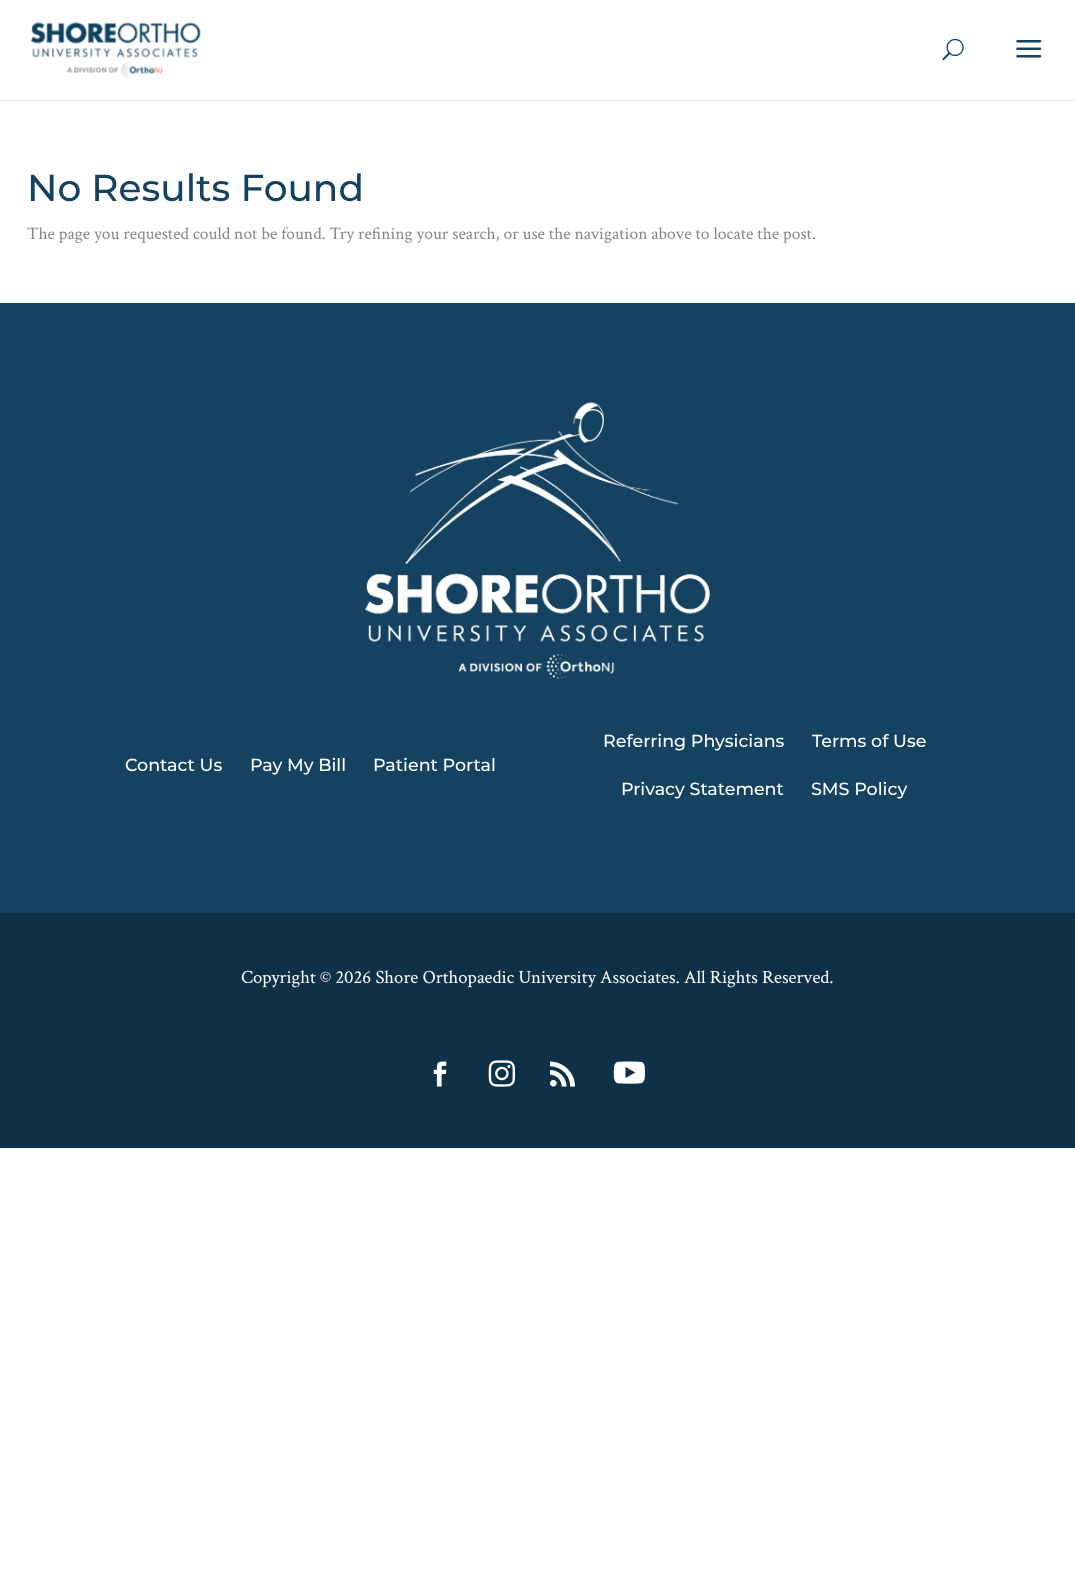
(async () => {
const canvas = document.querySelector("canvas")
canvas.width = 1075
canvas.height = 1588
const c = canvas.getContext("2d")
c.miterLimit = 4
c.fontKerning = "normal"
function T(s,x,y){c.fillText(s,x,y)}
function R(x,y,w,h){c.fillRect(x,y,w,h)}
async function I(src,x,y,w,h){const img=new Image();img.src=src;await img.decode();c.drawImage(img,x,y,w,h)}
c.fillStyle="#fff"
R(0,0,1075,1588)
c.fillStyle="#e6e6e6"
R(0,100,1075,1)
await I("1.png",31,22,170,56)
await I("2.png",942,38,22,23)
await I("3.png",1016,40,26,18)
c.font="100 37.5px Montserrat"
c.fillStyle="#144260"
T("No Results Found",27,201)
c.font="17.5px Crimson Text"
c.fillStyle="#878787"
T("The page you requested could not be found. Try refining your search, or use the navigation above to locate the post.",27,239)
c.fillStyle="#144260"
R(0,303,1075,610)
await I("4.png",365,402,345,277)
c.font="100 17.5px Montserrat"
c.fillStyle="#fff"
T("Contact Us",125,771)
T("Pay My Bill",250,771)
T("Patient Portal",373,771)
T("Referring Physicians",603,747)
T("Terms of Use",812,747)
T("Privacy Statement",621,795)
T("SMS Policy",811,795)
c.fillStyle="#0f3147"
R(0,913,1075,235)
c.font="18.75px Crimson Text"
c.fillStyle="#fff"
T("Copyright © 2026 Shore Orthopaedic University Associates. All Rights Reserved.",241,983)
await I("5.png",433,1061,14,26)
await I("6.png",488,1060,27,27)
await I("7.png",550,1061,25,26)
await I("8.png",613,1061,32,23)
})()
